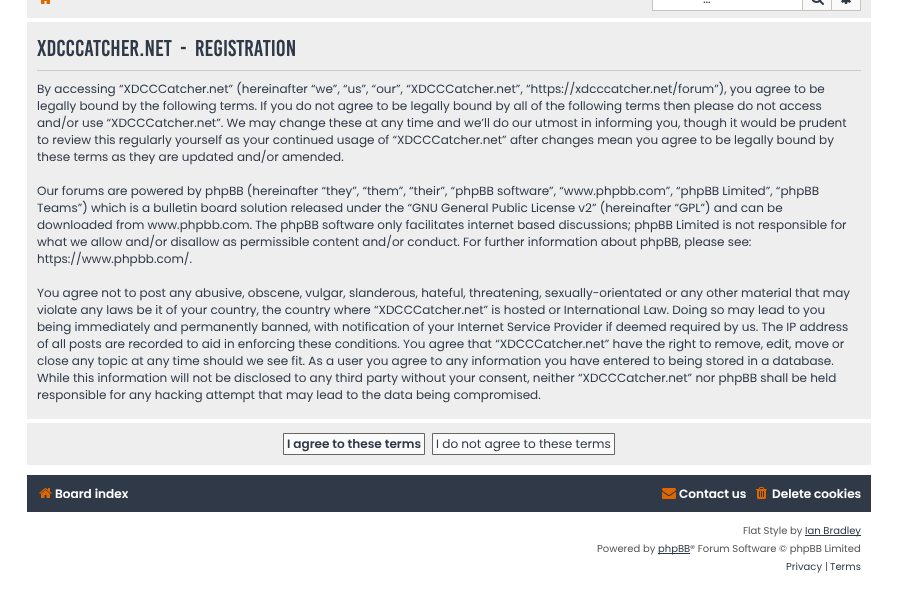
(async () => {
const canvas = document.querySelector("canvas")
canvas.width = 898
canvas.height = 613
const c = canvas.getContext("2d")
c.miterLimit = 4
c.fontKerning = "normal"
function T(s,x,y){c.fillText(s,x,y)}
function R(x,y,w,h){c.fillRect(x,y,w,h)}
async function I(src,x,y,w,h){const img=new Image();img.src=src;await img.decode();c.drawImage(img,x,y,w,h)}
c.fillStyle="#fff"
R(0,0,898,613)
c.fillStyle="#eee"
R(27,0,844,18)
await I("1.png",41,0,9,4)
c.fillStyle="#fff"
R(653,0,149,10)
c.fillStyle="#c7c3bf"
R(652,10,150,1)
R(652,0,1,11)
c.font="13px Poppins"
c.fillStyle="#2f3947"
T("…",703,3)
c.fillStyle="#fafafa"
c.beginPath()
c.rect(802.5,-.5,29,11)
c.fill()
c.strokeStyle="#c7c3bf"
c.stroke()
await I("2.png",811,0,13,5)
R(832,0,28,10)
c.fillStyle="#c7c3bf"
R(860,0,1,11)
R(832,10,29,1)
await I("3.png",841,0,10,4)
c.fillStyle="#eee"
R(27,22,844,397)
c.fillStyle="#ccc"
R(37,70,824,1)
c.wordSpacing="4px"
c.font="17.6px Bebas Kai"
c.fillStyle="#2f3947"
T("XDCCCatcher.net - Registration",37,56)
c.wordSpacing="0px"
c.font="12px Poppins"
T("By accessing “XDCCCatcher.net” (hereinafter “we”, “us”, “our”, “XDCCCatcher.net”, “https://xdcccatcher.net/forum”), you agree to be",37,93)
T("legally bound by the following terms. If you do not agree to be legally bound by all of the following terms then please do not access",37,110)
T("and/or use “XDCCCatcher.net”. We may change these at any time and we’ll do our utmost in informing you, though it would be prudent",37,127)
T("to review this regularly yourself as your continued usage of “XDCCCatcher.net” after changes mean you agree to be legally bound by",37,144)
T("these terms as they are updated and/or amended.",37,161)
T("Our forums are powered by phpBB (hereinafter “they”, “them”, “their”, “phpBB software”, “www.phpbb.com”, “phpBB Limited”, “phpBB",37,195)
T("Teams”) which is a bulletin board solution released under the “GNU General Public License v2” (hereinafter “GPL”) and can be",37,212)
T("downloaded from www.phpbb.com. The phpBB software only facilitates internet based discussions; phpBB Limited is not responsible for",37,229)
T("what we allow and/or disallow as permissible content and/or conduct. For further information about phpBB, please see:",37,246)
T("https://www.phpbb.com/.",37,263)
T("You agree not to post any abusive, obscene, vulgar, slanderous, hateful, threatening, sexually-orientated or any other material that may",37,297)
T("violate any laws be it of your country, the country where “XDCCCatcher.net” is hosted or International Law. Doing so may lead to you",37,314)
T("being immediately and permanently banned, with notification of your Internet Service Provider if deemed required by us. The IP address",37,331)
T("of all posts are recorded to aid in enforcing these conditions. You agree that “XDCCCatcher.net” have the right to remove, edit, move or",37,348)
T("close any topic at any time should we see fit. As a user you agree to any information you have entered to being stored in a database.",37,365)
T("While this information will not be disclosed to any third party without your consent, neither “XDCCCatcher.net” nor phpBB shall be held",37,382)
T("responsible for any hacking attempt that may lead to the data being compromised.",37,399)
c.fillStyle="#eee"
R(27,423,844,42)
c.fillStyle="#fafafa"
c.beginPath()
c.rect(283.5,433.5,141,21)
c.fill()
c.strokeStyle="#666"
c.stroke()
c.font="600 12.1px Poppins"
c.fillStyle="#2f3947"
T("I agree to these terms",287,448)
c.fillStyle="#fafafa"
c.beginPath()
c.rect(432.5,433.5,182,21)
c.fill()
c.stroke()
c.font="12.1px Poppins"
c.fillStyle="#2f3947"
T("I do not agree to these terms",436,448)
R(27,475,844,37)
await I("4.png",39,488,13,10)
c.font="600 12.1px Poppins"
c.fillStyle="#fff"
T("Board index",55,498)
await I("5.png",662,488,14,11)
T("Contact us",679,498)
await I("6.png",756,487,11,12)
T("Delete cookies",772,498)
c.font="10px Poppins"
c.fillStyle="#555"
T("Flat Style by",743,534)
c.fillStyle="#2f3947"
R(805,535,56,1)
T("Ian Bradley",805,534)
c.fillStyle="#555"
T("Powered by",597,552)
c.fillStyle="#2f3947"
R(658,553,32,1)
T("phpBB",658,552)
c.fillStyle="#555"
T("® Forum Software © phpBB Limited",690,552)
c.fillStyle="#2f3947"
T("Privacy",786,570)
c.fillStyle="#555"
T("|",825,570)
c.fillStyle="#2f3947"
T("Terms",830,570)
})()
